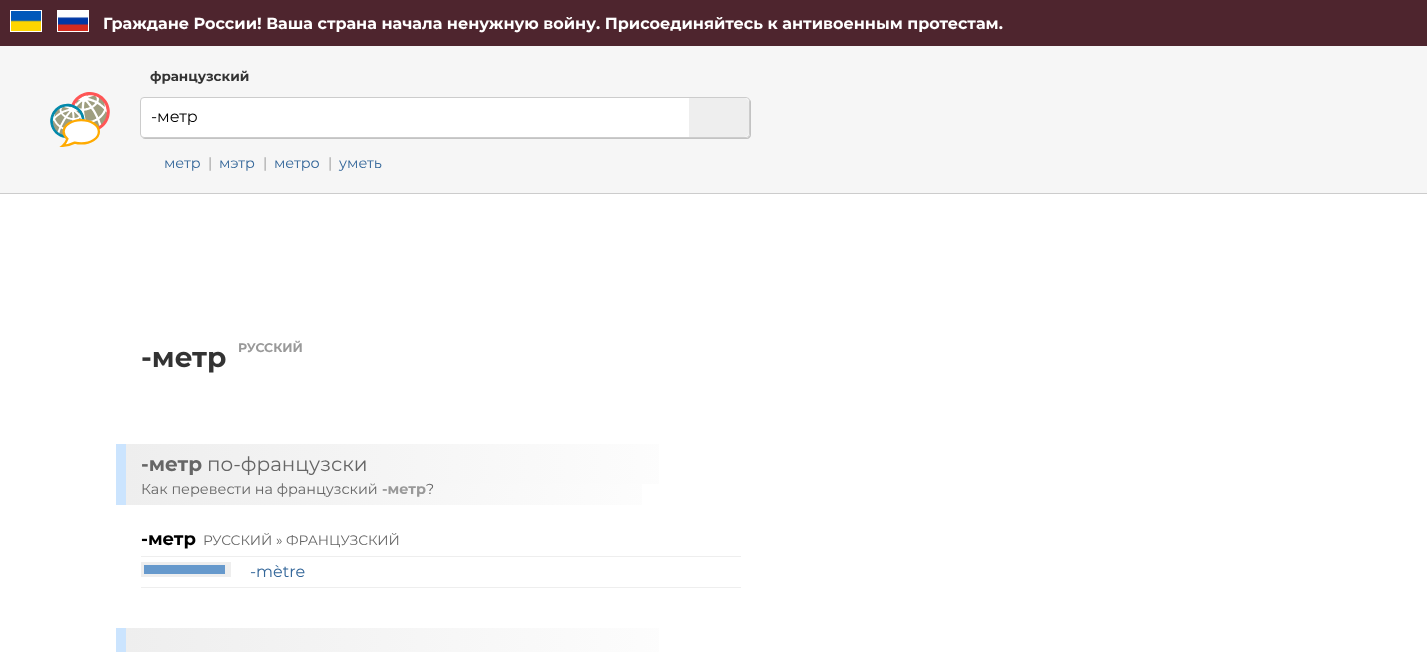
(async () => {
const canvas = document.querySelector("canvas")
canvas.width = 1427
canvas.height = 652
const c = canvas.getContext("2d")
c.miterLimit = 4
c.fontKerning = "normal"
function T(s,x,y){c.fillText(s,x,y)}
function R(x,y,w,h){c.fillRect(x,y,w,h)}
async function I(src,x,y,w,h){const img=new Image();img.src=src;await img.decode();c.drawImage(img,x,y,w,h)}
let gradient, path
c.fillStyle="#f6f6f6"
R(0,0,1427,652)
c.fillStyle="#4e252e"
R(0,0,1427,46)
c.strokeStyle="#fff"
c.strokeRect(10.5,10.5,31,21)
c.strokeRect(57.5,10.5,31,21)
await I("1.png",11,11,30,20)
await I("2.png",58,11,30,20)
c.font="bold 16px Montserrat"
c.fillStyle="#fff"
T("Граждане России! Ваша страна начала ненужную войну. Присоединяйтесь к антивоенным протестам.",103,29)
c.fillStyle="#ccc"
R(0,193,1427,1)
c.font="bold 13.5px Montserrat"
c.fillStyle="#333"
T("французский",150,81)
await I("3.png",50,92,60,55)
c.fillStyle="#c3c3c3"
path = new Path2D("M142 137c0 1 2 2 3 2h602c2 0 4-2 4-4v-33c0-1-1-3-2-3l1 2v33c0 2-2 4-4 4h-602z")
c.fill(path)
c.fillStyle="#fff"
c.beginPath()
c.roundRect(140.5,97.5,609,40,3.5)
c.fill()
c.strokeStyle="#ccc"
c.stroke()
c.font="16px Montserrat"
c.fillStyle="#000"
T("-метр",151,122)
c.fillStyle="#eee"
c.beginPath()
c.roundRect(689,98,60,39,[0,5,5,0])
c.fill()
c.font="14.4px Montserrat"
c.fillStyle="#369"
T("метр",164,168)
c.fillStyle="#999"
T("|",208,168)
c.fillStyle="#369"
T("мэтр",219,168)
c.fillStyle="#999"
T("|",263,168)
c.fillStyle="#369"
T("метро",274,168)
c.fillStyle="#999"
T("|",328,168)
c.fillStyle="#369"
T("уметь",339,168)
c.fillStyle="#fff"
R(0,194,1427,458)
c.font="bold 12.5px Montserrat"
c.fillStyle="#999"
T("РУССКИЙ",238,352)
c.font="bold 28px Montserrat"
c.fillStyle="#333"
T("-метр",141,367)
gradient = c.createLinearGradient(126,464,751,464)
gradient.addColorStop(0,"#eee")
gradient.addColorStop(1,"#fff")
c.fillStyle = gradient
R(126,444,533,40)
c.fillStyle="#cbe4fe"
R(116,444,10,61)
c.font="bold 20px Montserrat"
c.fillStyle="#666"
T("-метр",141,471)
c.font="20px Montserrat"
T("по-французски",207,471)
gradient = c.createLinearGradient(126,492,731,492)
gradient.addColorStop(0,"#eee")
gradient.addColorStop(1,"#fff")
c.fillStyle = gradient
R(126,484,516,21)
c.font="14.4px Montserrat"
c.fillStyle="#666"
T("Как перевести на французский",141,494)
c.font="bold 14.4px Montserrat"
c.fillStyle="#999"
T("-метр",382,494)
c.font="14.4px Montserrat"
c.fillStyle="#666"
T("?",426,494)
c.fillStyle="#eee"
R(141,556,600,1)
c.font="bold 18px Montserrat"
c.fillStyle="#000"
T("-метр",141,545)
c.font="13.7px Montserrat"
c.fillStyle="#666"
T("РУССКИЙ » ФРАНЦУЗСКИЙ",203,545)
c.fillStyle="#eee"
R(141,587,600,1)
R(141,562,90,15)
c.fillStyle="#69c"
R(144,565,81,9)
c.font="16px Montserrat"
c.fillStyle="#369"
T("-mètre",250,577)
gradient = c.createLinearGradient(126,648,751,648)
gradient.addColorStop(0,"#eee")
gradient.addColorStop(1,"#fff")
c.fillStyle = gradient
R(126,628,533,24)
c.fillStyle="#cbe4fe"
R(116,628,10,24)
})()
